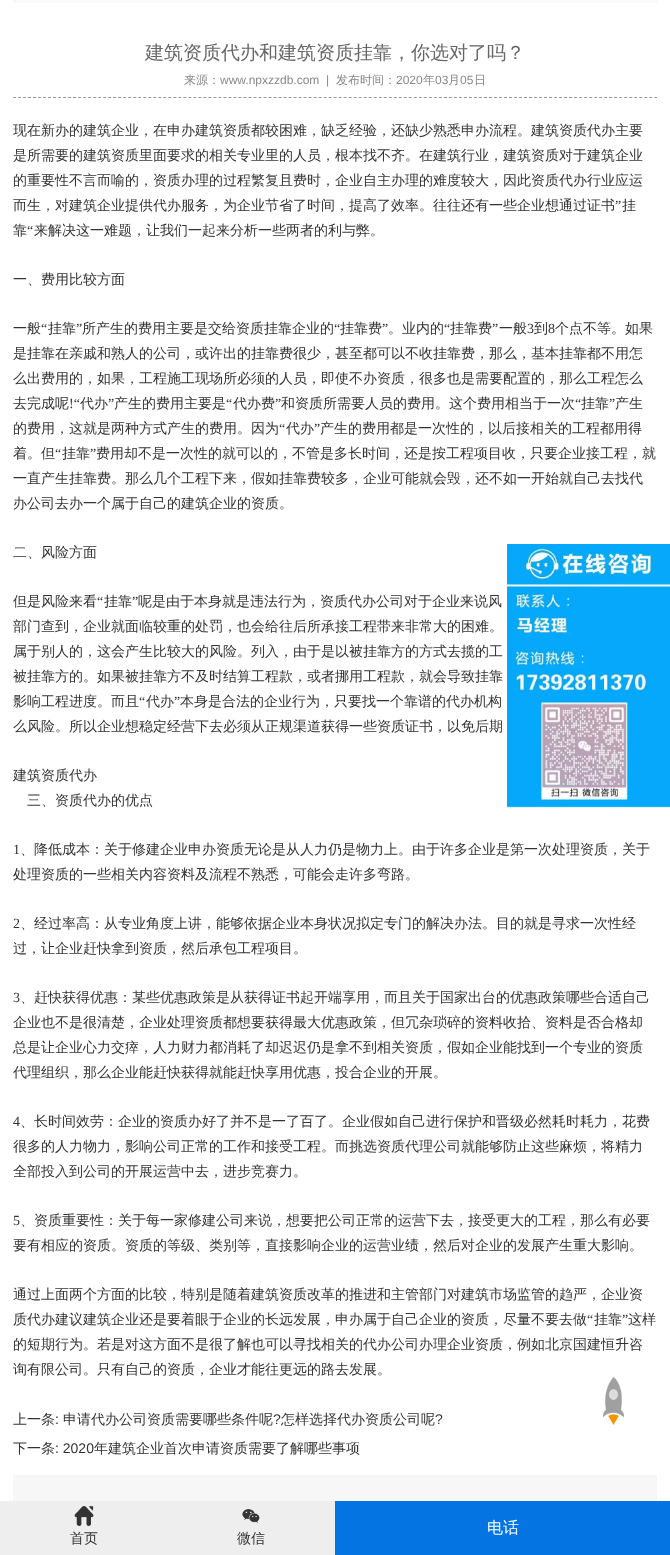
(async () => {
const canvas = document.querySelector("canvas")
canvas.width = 670
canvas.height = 1555
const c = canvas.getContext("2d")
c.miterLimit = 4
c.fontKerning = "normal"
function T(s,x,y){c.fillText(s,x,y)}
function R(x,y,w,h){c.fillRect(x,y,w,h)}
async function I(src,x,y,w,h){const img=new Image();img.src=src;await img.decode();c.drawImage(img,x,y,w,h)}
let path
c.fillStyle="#fff"
R(0,0,670,1555)
c.fillStyle="#f9f9f9"
R(13,0,644,3)
c.font="500 19px WenQuanYi Zen Hei"
c.fillStyle="#666"
T("建筑资质代办和建筑资质挂靠，你选对了吗？",145,59)
path = new Path2D("M13 97.5h644")
c.strokeStyle="#999"
c.setLineDash([3,2.01])
c.stroke(path)
c.font="500 12px WenQuanYi Zen Hei"
c.fillStyle="#888"
T("来源：",184,84)
c.font="12px Liberation Sans"
T("www.npxzzdb.com",220,84)
T("|",326,84)
c.font="500 12px WenQuanYi Zen Hei"
T("发布时间：",336,84)
c.font="12px Liberation Sans"
T("2020",396,84)
c.font="500 12px WenQuanYi Zen Hei"
T("年",423,84)
c.font="12px Liberation Sans"
T("03",435,84)
c.font="500 12px WenQuanYi Zen Hei"
T("月",448,84)
c.font="12px Liberation Sans"
T("05",460,84)
c.font="500 12px WenQuanYi Zen Hei"
T("日",474,84)
c.font="500 14px WenQuanYi Zen Hei"
c.fillStyle="#333"
T("现在新办的建筑企业，在申办建筑资质都较困难，缺乏经验，还缺少熟悉申办流程。建筑资质代办主要",13,135)
T("是所需要的建筑资质里面要求的相关专业里的人员，根本找不齐。在建筑行业，建筑资质对于建筑企业",13,160)
T("的重要性不言而喻的，资质办理的过程繁复且费时，企业自主办理的难度较大，因此资质代办行业应运",13,185)
T("而生，对建筑企业提供代办服务，为企业节省了时间，提高了效率。往往还有一些企业想通过证书",13,210)
c.font="14px Liberation Serif"
T("”",615,210)
c.font="500 14px WenQuanYi Zen Hei"
T("挂",622,210)
T("靠",13,235)
c.font="14px Liberation Serif"
T("“",27,235)
c.font="500 14px WenQuanYi Zen Hei"
T("来解决这一难题，让我们一起来分析一些两者的利与弊。",34,235)
T("一、费用比较方面",13,284)
T("一般",13,333)
c.font="14px Liberation Serif"
T("“",41,333)
c.font="500 14px WenQuanYi Zen Hei"
T("挂靠",48,333)
c.font="14px Liberation Serif"
T("”",76,333)
c.font="500 14px WenQuanYi Zen Hei"
T("所产生的费用主要是交给资质挂靠企业的",82,333)
c.font="14px Liberation Serif"
T("“",334,333)
c.font="500 14px WenQuanYi Zen Hei"
T("挂靠费",340,333)
c.font="14px Liberation Serif"
T("”",382,333)
c.font="500 14px WenQuanYi Zen Hei"
T("。业内的",388,333)
c.font="14px Liberation Serif"
T("“",444,333)
c.font="500 14px WenQuanYi Zen Hei"
T("挂靠费",450,333)
c.font="14px Liberation Serif"
T("”",492,333)
c.font="500 14px WenQuanYi Zen Hei"
T("一般",499,333)
c.font="14px Liberation Serif"
T("3",527,333)
c.font="500 14px WenQuanYi Zen Hei"
T("到",534,333)
c.font="14px Liberation Serif"
T("8",548,333)
c.font="500 14px WenQuanYi Zen Hei"
T("个点不等。如果",555,333)
T("是挂靠在亲戚和熟人的公司，或许出的挂靠费很少，甚至都可以不收挂靠费，那么，基本挂靠都不用怎",13,358)
T("么出费用的，如果，工程施工现场所必须的人员，即使不办资质，很多也是需要配置的，那么工程怎么",13,383)
T("去完成呢",13,408)
c.font="14px Liberation Serif"
T("!“",69,408)
c.font="500 14px WenQuanYi Zen Hei"
T("代办",80,408)
c.font="14px Liberation Serif"
T("”",108,408)
c.font="500 14px WenQuanYi Zen Hei"
T("产生的费用主要是",114,408)
c.font="14px Liberation Serif"
T("“",226,408)
c.font="500 14px WenQuanYi Zen Hei"
T("代办费",233,408)
c.font="14px Liberation Serif"
T("”",275,408)
c.font="500 14px WenQuanYi Zen Hei"
T("和资质所需要人员的费用。这个费用相当于一次",281,408)
c.font="14px Liberation Serif"
T("“",575,408)
c.font="500 14px WenQuanYi Zen Hei"
T("挂靠",581,408)
c.font="14px Liberation Serif"
T("”",609,408)
c.font="500 14px WenQuanYi Zen Hei"
T("产生",615,408)
T("的费用，这就是两种方式产生的费用。因为",13,433)
c.font="14px Liberation Serif"
T("“",279,433)
c.font="500 14px WenQuanYi Zen Hei"
T("代办",286,433)
c.font="14px Liberation Serif"
T("”",314,433)
c.font="500 14px WenQuanYi Zen Hei"
T("产生的费用都是一次性的，以后接相关的工程都用得",320,433)
T("着。但",13,458)
c.font="14px Liberation Serif"
T("“",55,458)
c.font="500 14px WenQuanYi Zen Hei"
T("挂靠",62,458)
c.font="14px Liberation Serif"
T("”",90,458)
c.font="500 14px WenQuanYi Zen Hei"
T("费用却不是一次性的就可以的，不管是多长时间，还是按工程项目收，只要企业接工程，就",96,458)
T("一直产生挂靠费。那么几个工程下来，假如挂靠费较多，企业可能就会毁，还不如一开始就自己去找代",13,483)
T("办公司去办一个属于自己的建筑企业的资质。",13,508)
T("二、风险方面",13,557)
T("但是风险来看",13,606)
c.font="14px Liberation Serif"
T("“",97,606)
c.font="500 14px WenQuanYi Zen Hei"
T("挂靠",104,606)
c.font="14px Liberation Serif"
T("”",132,606)
c.font="500 14px WenQuanYi Zen Hei"
T("呢是由于本身就是违法行为，资质代办公司对于企业来说风",138,606)
T("部门查到，企业就面临较重的处罚，也会给往后所承接工程带来非常大的困难。",13,631)
T("属于别人的，这会产生比较大的风险。列入，由于是以被挂靠方的方式去揽的工",13,656)
T("被挂靠方的。如果被挂靠方不及时结算工程款，或者挪用工程款，就会导致挂靠",13,681)
T("影响工程进度。而且",13,706)
c.font="14px Liberation Serif"
T("“",139,706)
c.font="500 14px WenQuanYi Zen Hei"
T("代办",146,706)
c.font="14px Liberation Serif"
T("”",174,706)
c.font="500 14px WenQuanYi Zen Hei"
T("本身是合法的企业行为，只要找一个靠谱的代办机构",180,706)
T("么风险。所以企业想稳定经营下去必须从正规渠道获得一些资质证书，以免后期",13,731)
T("建筑资质代办",13,780)
T("三、资质代办的优点",27,805)
c.font="14px Liberation Serif"
T("1",13,854)
c.font="500 14px WenQuanYi Zen Hei"
T("、降低成本：关于修建企业申办资质无论是从人力仍是物力上。由于许多企业是第一次处理资质，关于",20,854)
T("处理资质的一些相关内容资料及流程不熟悉，可能会走许多弯路。",13,879)
c.font="14px Liberation Serif"
T("2",13,928)
c.font="500 14px WenQuanYi Zen Hei"
T("、经过率高：从专业角度上讲，能够依据企业本身状况拟定专门的解决办法。目的就是寻求一次性经",20,928)
T("过，让企业赶快拿到资质，然后承包工程项目。",13,953)
c.font="14px Liberation Serif"
T("3",13,1002)
c.font="500 14px WenQuanYi Zen Hei"
T("、赶快获得优惠：某些优惠政策是从获得证书起开端享用，而且关于国家出台的优惠政策哪些合适自己",20,1002)
T("企业也不是很清楚，企业处理资质都想要获得最大优惠政策，但冗杂琐碎的资料收拾、资料是否合格却",13,1027)
T("总是让企业心力交瘁，人力财力都消耗了却迟迟仍是拿不到相关资质，假如企业能找到一个专业的资质",13,1052)
T("代理组织，那么企业能赶快获得就能赶快享用优惠，投合企业的开展。",13,1077)
c.font="14px Liberation Serif"
T("4",13,1126)
c.font="500 14px WenQuanYi Zen Hei"
T("、长时间效劳：企业的资质办好了并不是一了百了。企业假如自己进行保护和晋级必然耗时耗力，花费",20,1126)
T("很多的人力物力，影响公司正常的工作和接受工程。而挑选资质代理公司就能够防止这些麻烦，将精力",13,1151)
T("全部投入到公司的开展运营中去，进步竞赛力。",13,1176)
c.font="14px Liberation Serif"
T("5",13,1225)
c.font="500 14px WenQuanYi Zen Hei"
T("、资质重要性：关于每一家修建公司来说，想要把公司正常的运营下去，接受更大的工程，那么有必要",20,1225)
T("要有相应的资质。资质的等级、类别等，直接影响企业的运营业绩，然后对企业的发展产生重大影响。",13,1250)
T("通过上面两个方面的比较，特别是随着建筑资质改革的推进和主管部门对建筑市场监管的趋严，企业资",13,1299)
T("质代办建议建筑企业还是要着眼于企业的长远发展，申办属于自己企业的资质，尽量不要去做",13,1324)
c.font="14px Liberation Serif"
T("“",587,1324)
c.font="500 14px WenQuanYi Zen Hei"
T("挂靠",594,1324)
c.font="14px Liberation Serif"
T("”",622,1324)
c.font="500 14px WenQuanYi Zen Hei"
T("这样",628,1324)
T("的短期行为。若是对这方面不是很了解也可以寻找相关的代办公司办理企业资质，例如北京国建恒升咨",13,1349)
T("询有限公司。只有自己的资质，企业才能往更远的路去发展。",13,1374)
T("上一条",13,1424)
c.font="14px Liberation Sans"
T(":",55,1424)
c.font="500 14px WenQuanYi Zen Hei"
T("申请代办公司资质需要哪些条件呢",63,1424)
c.font="14px Liberation Sans"
T("?",273,1424)
c.font="500 14px WenQuanYi Zen Hei"
T("怎样选择代办资质公司呢",281,1424)
c.font="14px Liberation Sans"
T("?",435,1424)
c.font="500 14px WenQuanYi Zen Hei"
T("下一条",13,1453)
c.font="14px Liberation Sans"
T(": 2020",55,1453)
c.font="500 14px WenQuanYi Zen Hei"
T("年建筑企业首次申请资质需要了解哪些事项",94,1453)
c.fillStyle="#f7f7f7"
R(13,1475,644,26)
await I("1.png",507,544,163,264)
c.fillStyle="#eee"
R(0,1501,335,54)
c.fillStyle="#0374e2"
R(335,1501,335,54)
c.font="500 16px WenQuanYi Zen Hei"
c.fillStyle="#fff"
T("电话",487,1533)
await I("2.png",74,1506,20,20)
c.font="500 14px WenQuanYi Zen Hei"
c.fillStyle="#333"
T("首页",70,1543)
await I("3.png",242,1509,18,15)
T("微信",237,1543)
await I("4.png",603,1377,21,48)
})()
